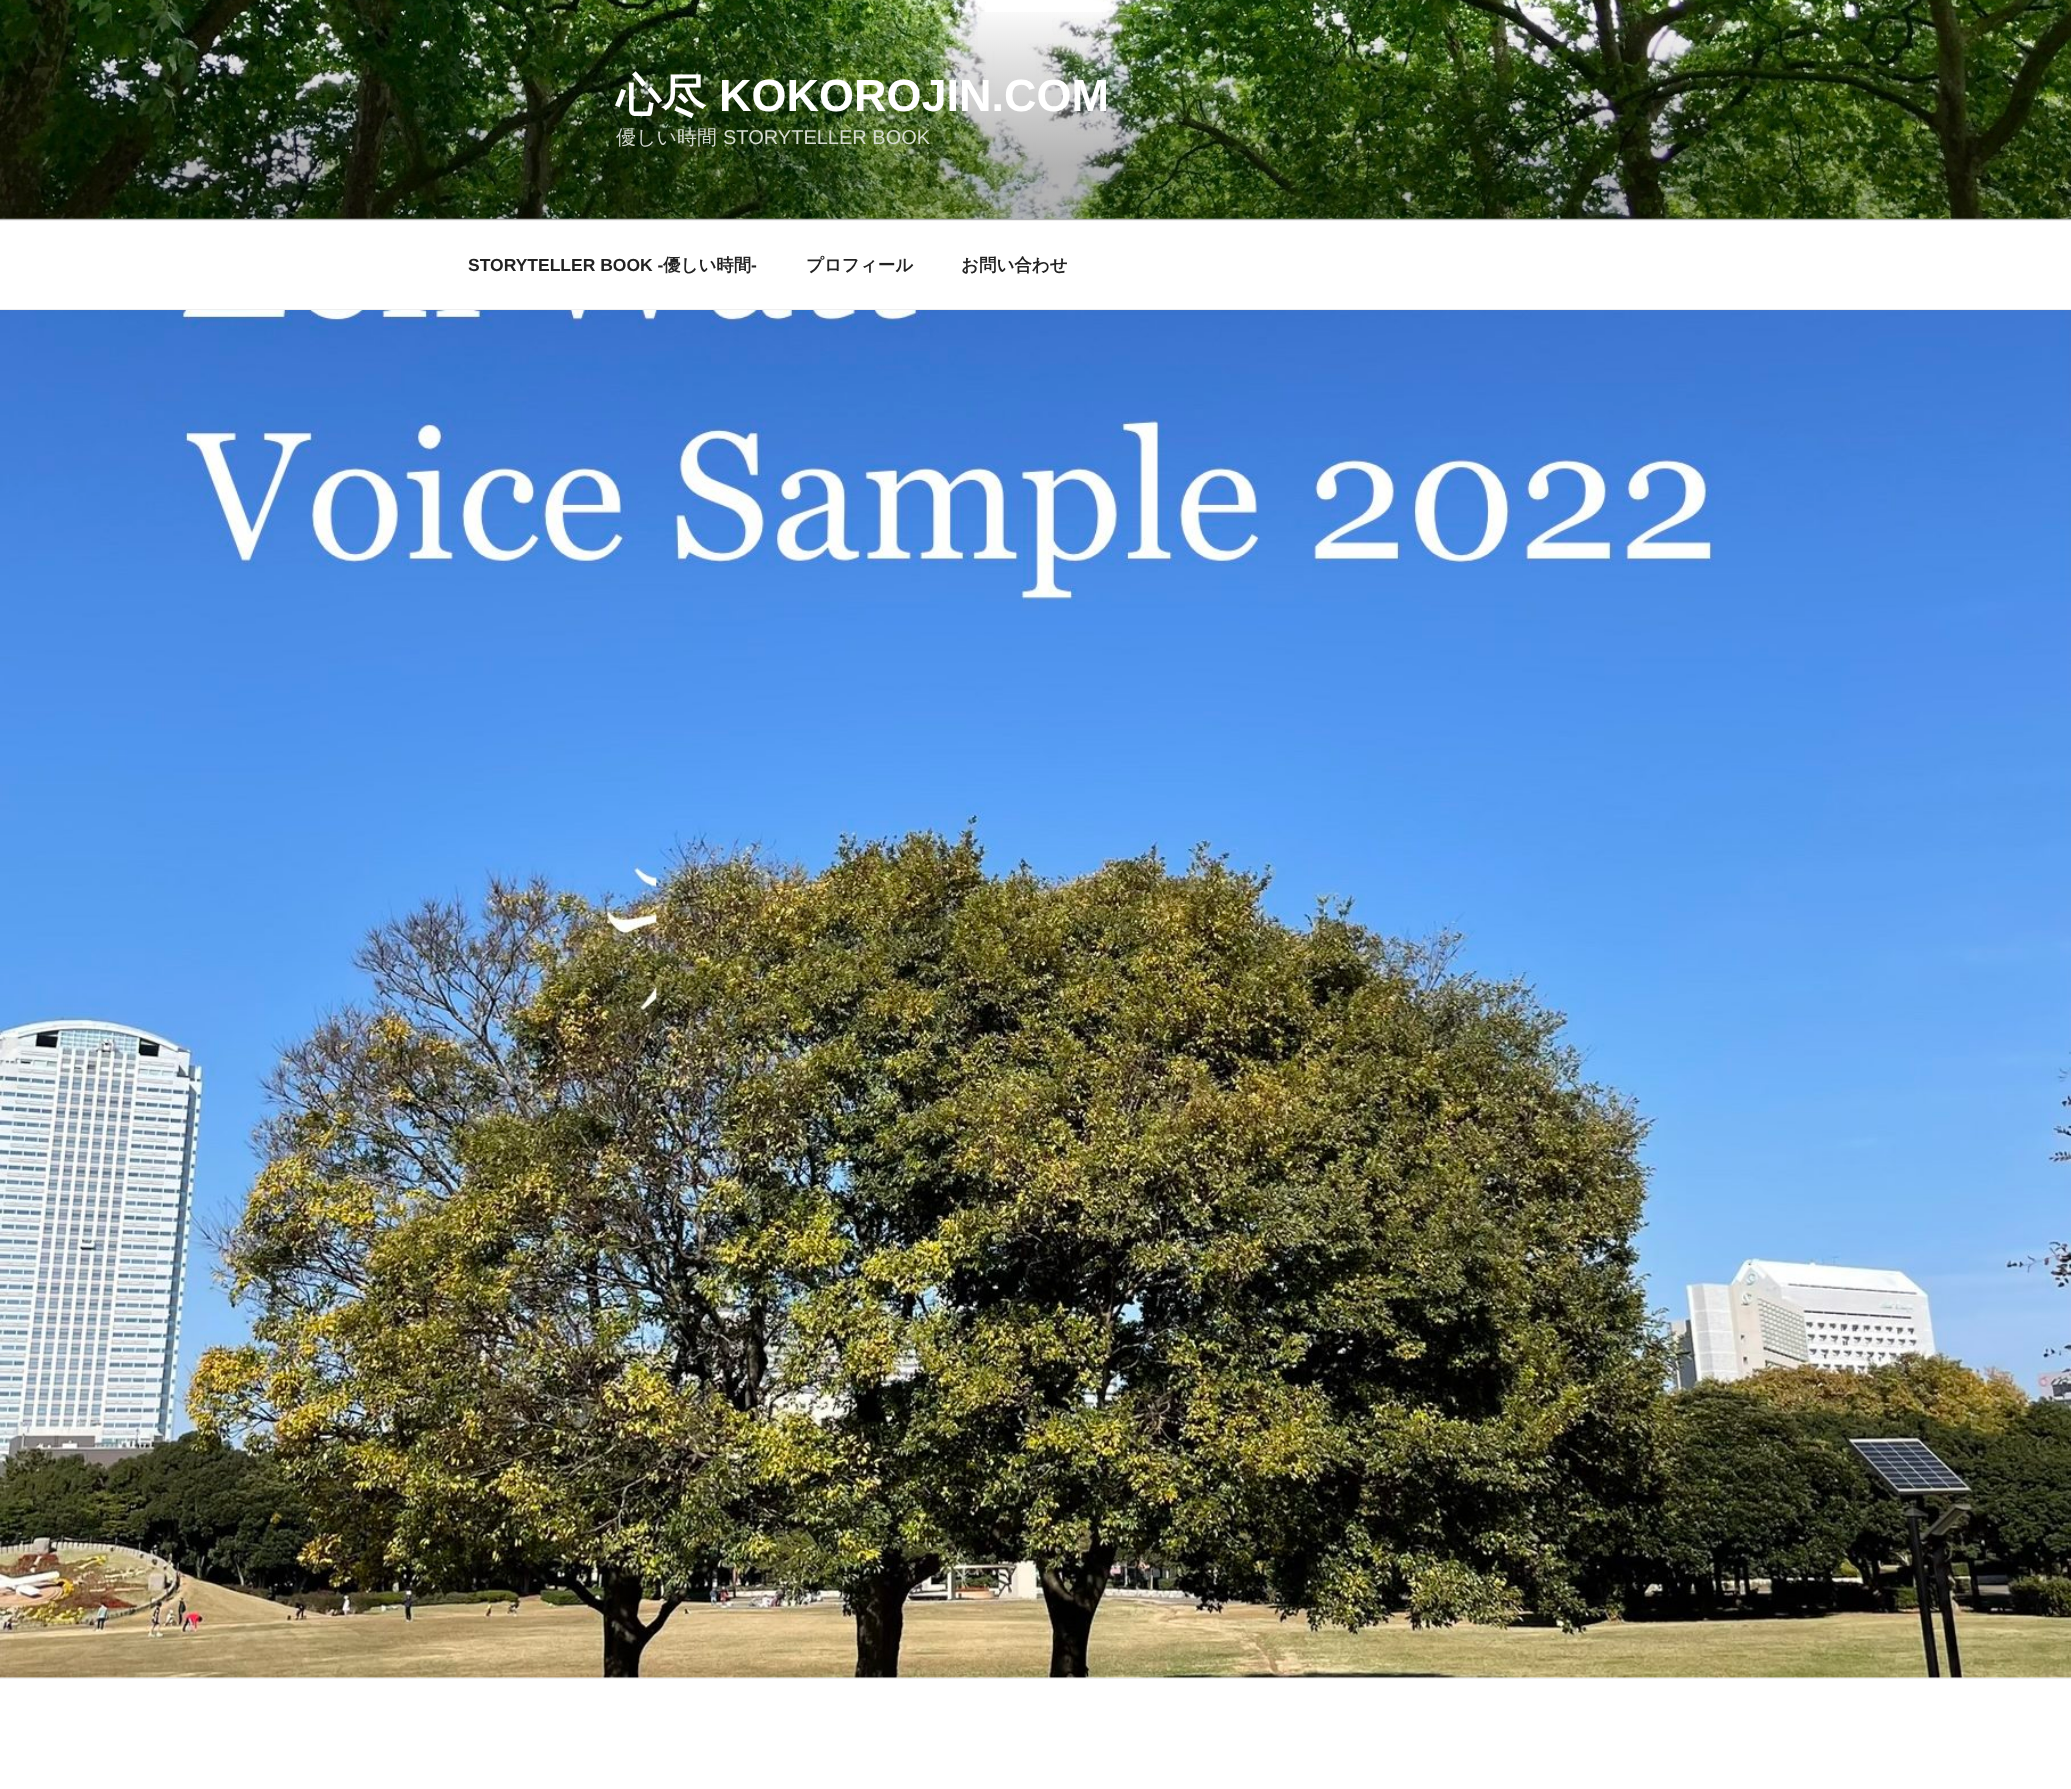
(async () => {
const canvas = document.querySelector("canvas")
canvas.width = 2071
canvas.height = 1789
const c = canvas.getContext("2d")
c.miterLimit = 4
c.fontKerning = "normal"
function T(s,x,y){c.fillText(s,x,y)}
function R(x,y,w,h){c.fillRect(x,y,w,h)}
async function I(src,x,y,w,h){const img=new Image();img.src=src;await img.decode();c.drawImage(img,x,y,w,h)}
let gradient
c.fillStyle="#fff"
R(0,0,2071,1789)
c.fillStyle="#fafafa"
R(0,218,2071,2)
await I("1.png",0,0,2071,219)
gradient = c.createLinearGradient(1036,0,1036,220)
gradient.addColorStop(0,"#00000000")
gradient.addColorStop(.75,"#0000004d")
gradient.addColorStop(1,"#0000004d")
c.fillStyle = gradient
R(0,12,2071,208)
c.font="bold 45px WenQuanYi Zen Hei"
c.fillStyle="#fff"
T("心尽",616,111)
c.font="bold 45px Liberation Sans"
T("KOKOROJIN.COM",719,111)
c.font="500 20px WenQuanYi Zen Hei"
c.fillStyle="#d2d7cf"
T("優しい時間",616,144)
c.font="20px Liberation Sans"
c.fillStyle="#d7ddd2"
T("STORYTELLER BOOK",723,144)
c.fillStyle="#eee"
R(0,220,2071,1)
R(0,309,2071,1)
c.font="bold 17.5px Liberation Sans"
c.fillStyle="#222"
T("STORYTELLER BOOK -",468,271)
c.font="bold 17.5px WenQuanYi Zen Hei"
T("優しい時間",663,271)
c.font="bold 17.5px Liberation Sans"
T("-",751,271)
c.font="bold 17.5px WenQuanYi Zen Hei"
T("プロフィール",806,271)
T("お問い合わせ",961,271)
c.fillStyle="#fafafa"
R(0,1677,2071,1)
c.fillStyle="#eee"
R(0,1678,2071,1)
await I("2.png",0,310,2071,1368)
})()
